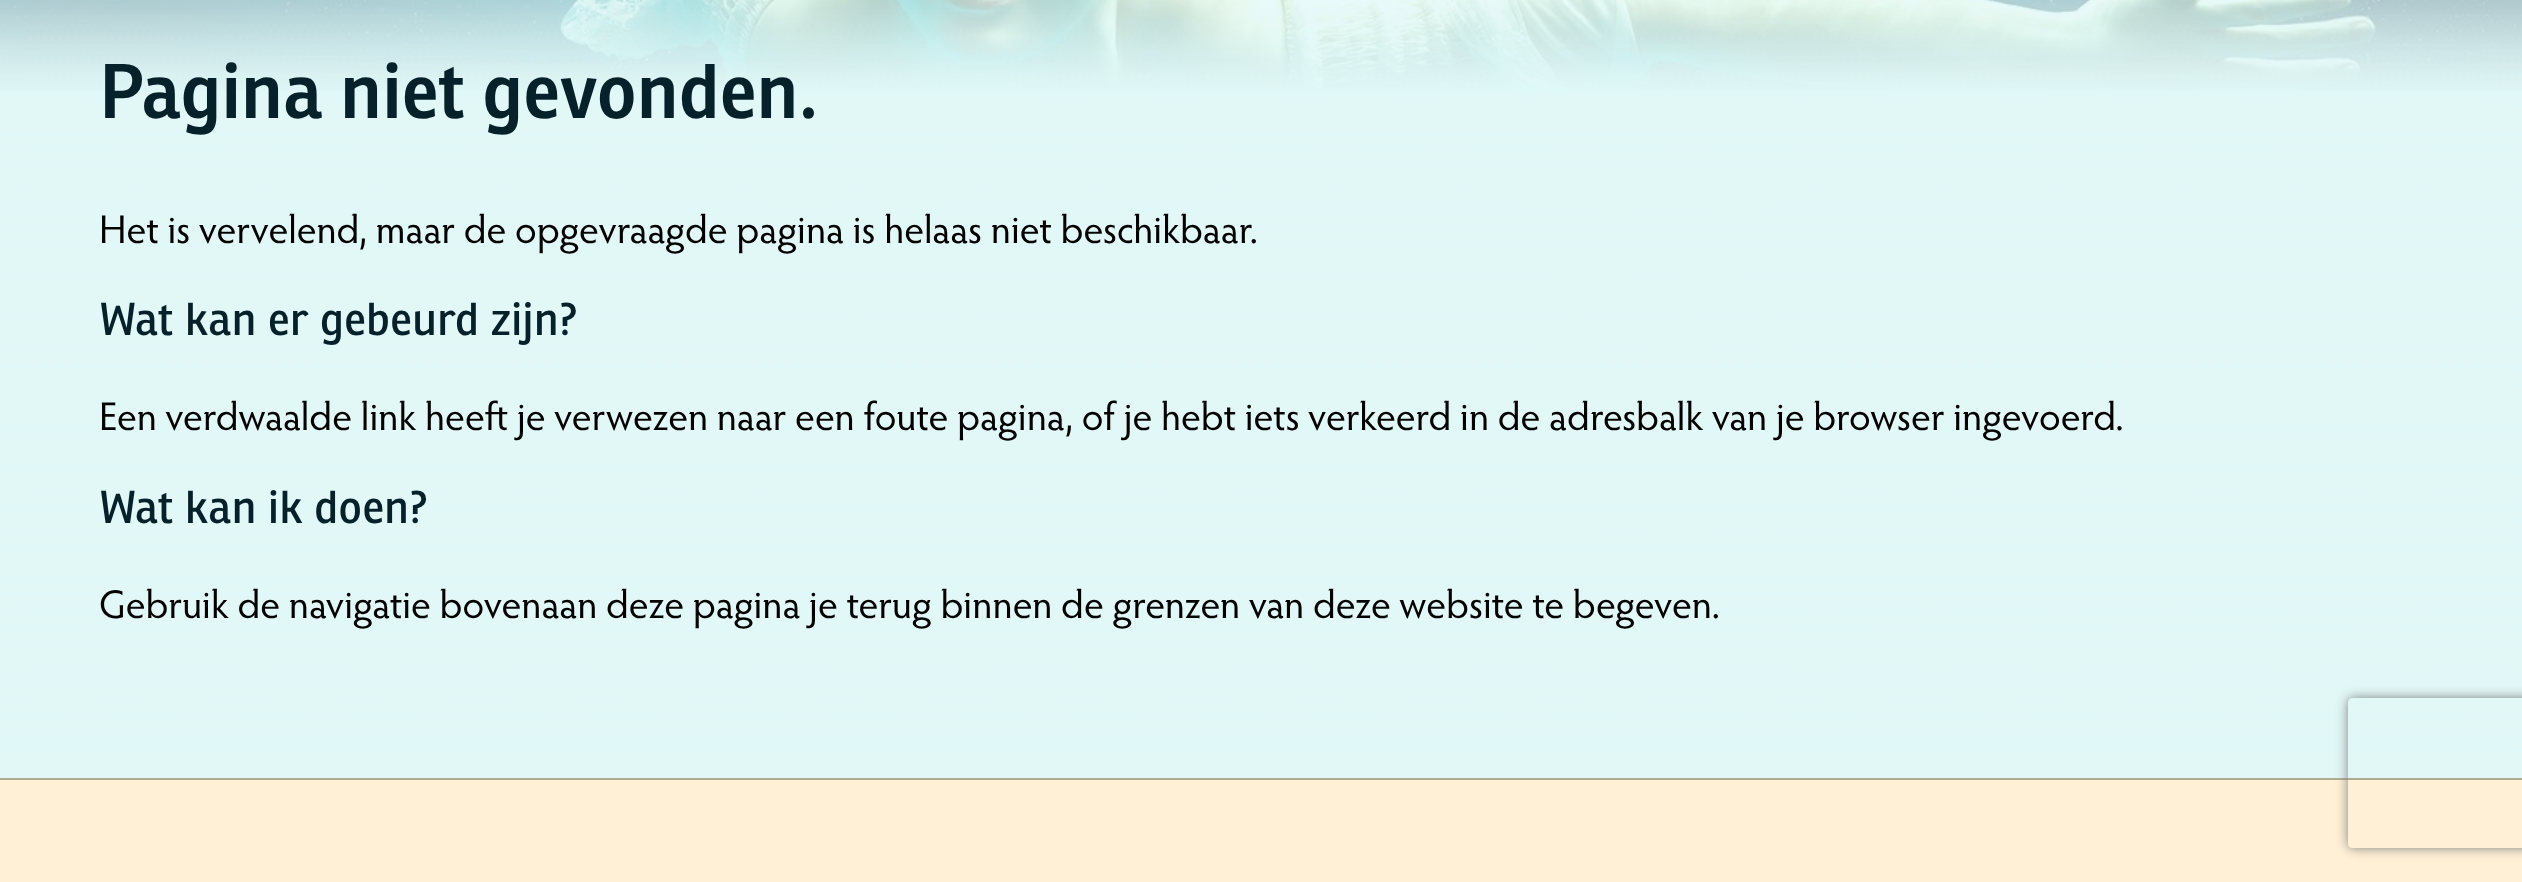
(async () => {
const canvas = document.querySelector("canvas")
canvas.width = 2522
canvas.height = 882
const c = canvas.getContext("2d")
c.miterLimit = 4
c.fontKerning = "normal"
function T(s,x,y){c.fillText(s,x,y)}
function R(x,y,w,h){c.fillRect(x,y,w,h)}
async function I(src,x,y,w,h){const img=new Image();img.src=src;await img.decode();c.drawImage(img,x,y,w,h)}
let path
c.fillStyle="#fff"
R(0,0,2522,882)
await I("1.png",0,0,2522,91)
await I("2.png",0,0,2522,778)
c.fillStyle="#afac93"
R(0,778,2522,2)
c.font="600 75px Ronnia"
c.fillStyle="#06212a"
T("Pagina niet gevonden.",99,118)
c.font="40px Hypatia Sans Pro"
c.fillStyle="#000"
T("Het is vervelend, maar de opgevraagde pagina is helaas niet beschikbaar.",99,243)
c.font="45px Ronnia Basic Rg"
c.fillStyle="#06212a"
T("Wat kan er gebeurd zijn?",99,335)
c.font="40px Hypatia Sans Pro"
c.fillStyle="#000"
T("Een verdwaalde link heeft je verwezen naar een foute pagina, of je hebt iets verkeerd in de adresbalk van je browser ingevoerd.",99,430)
c.font="45px Ronnia Basic Rg"
c.fillStyle="#06212a"
T("Wat kan ik doen?",99,523)
c.font="40px Hypatia Sans Pro"
c.fillStyle="#000"
T("Gebruik de navigatie bovenaan deze pagina je terug binnen de grenzen van deze website te begeven.",99,618)
c.fillStyle="#fff0d6"
R(0,780,2522,102)
c.save()
path = new Path2D("M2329 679h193v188h-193zm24 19h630c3 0 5 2 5 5v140c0 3-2 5-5 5h-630c-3 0-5-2-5-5v-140c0-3 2-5 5-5z")
c.clip(path,"evenodd")
c.fillStyle="#808080"
c.filter="blur(6px)"
c.beginPath()
c.roundRect(2348,698,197,150,5)
c.fill()
c.filter="none"
c.restore()
})()
